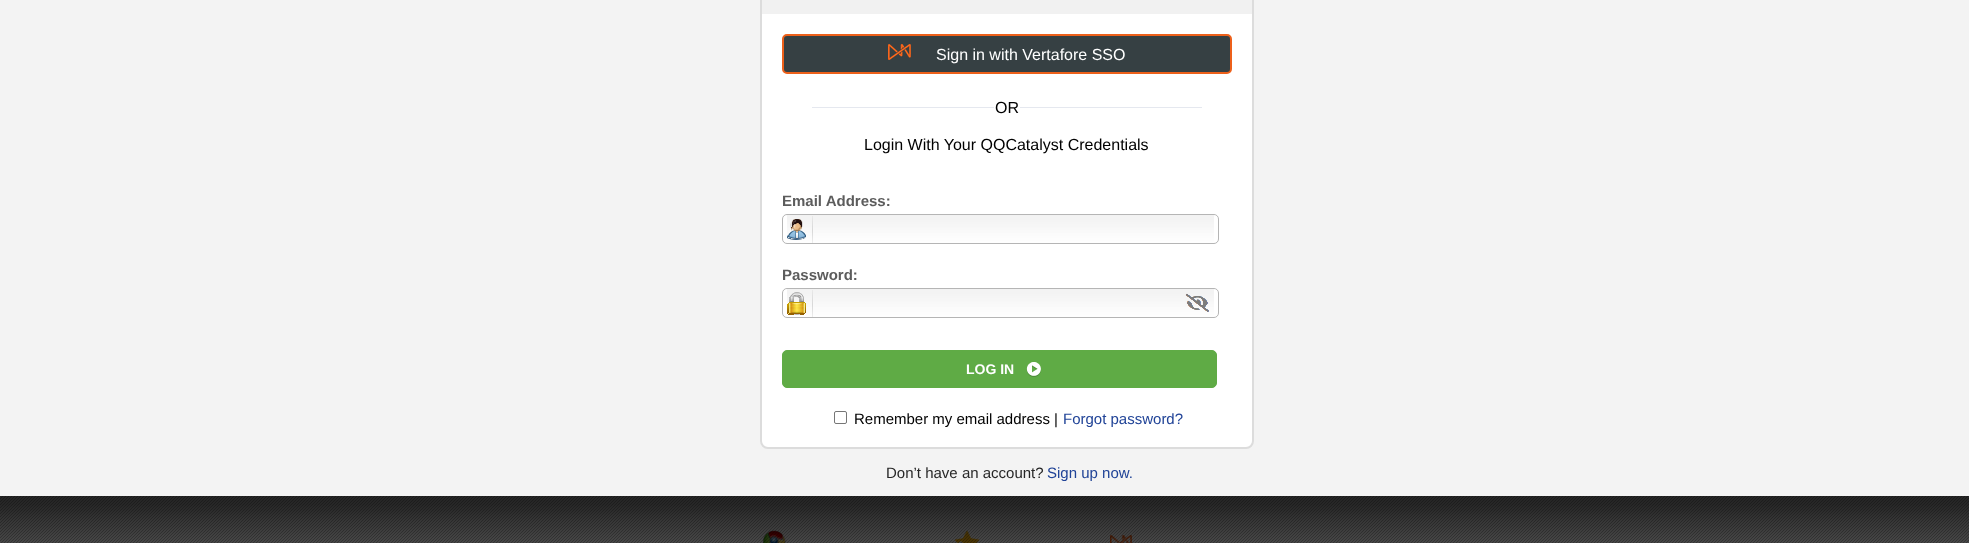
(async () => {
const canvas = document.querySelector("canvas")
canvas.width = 1969
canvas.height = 543
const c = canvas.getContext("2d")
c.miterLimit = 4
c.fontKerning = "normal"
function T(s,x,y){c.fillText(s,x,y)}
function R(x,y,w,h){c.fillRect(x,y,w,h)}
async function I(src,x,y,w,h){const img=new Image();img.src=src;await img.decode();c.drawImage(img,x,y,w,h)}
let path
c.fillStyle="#f3f3f3"
R(0,0,1969,543)
c.fillStyle="#fff"
c.beginPath()
c.roundRect(761,-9,492,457,7)
c.fill()
c.strokeStyle="#dcdcdc"
c.lineWidth=2
c.stroke()
c.save()
c.beginPath()
c.roundRect(762,-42,490,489,6)
c.clip()
c.fillStyle="#f1f1f1"
path = new Path2D("M770-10h474c5.5 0 10 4.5 10 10v14h-494v-14c0-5.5 4.5-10 10-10z")
c.fill(path)
c.restore()
c.fillStyle="#364043"
c.beginPath()
c.roundRect(783,35,448,38,4)
c.fill()
c.strokeStyle="#ed601a"
c.stroke()
await I("1.png",888,44,23,16)
c.font="16px Liberation Sans"
c.fillStyle="#fff"
T("Sign in with Vertafore SSO",936,60)
c.fillStyle="#e5e8ef"
R(812,107,390,1)
c.fillStyle="#fff"
R(994,107,26,1)
c.fillStyle="#000"
T("OR",995,113)
T("Login With Your QQCatalyst Credentials",864,150)
c.font="bold 15px Liberation Sans"
c.fillStyle="#5c5c5c"
T("Email Address:",782,206)
await I("2.png",787,215,427,28)
c.beginPath()
c.roundRect(782.5,214.5,436,29,4.5)
c.strokeStyle="#b5b5b5"
c.lineWidth=1
c.stroke()
await I("3.png",788,219,18,20)
T("Password:",782,280)
await I("4.png",787,289,427,28)
c.beginPath()
c.roundRect(782.5,288.5,436,29,4.5)
c.stroke()
await I("5.png",788,292,18,23)
await I("6.png",1185,293,24,19)
c.fillStyle="#5fab45"
c.beginPath()
c.roundRect(782.5,350.5,434,37,4.5)
c.fill()
c.strokeStyle="#5fab45"
c.stroke()
c.font="bold 14px Liberation Sans"
c.fillStyle="#fff"
T("LOG IN",966,374)
await I("7.png",1026,362,15,15)
c.beginPath()
c.roundRect(834.5,411.5,12,12,1.5)
c.strokeStyle="#767676"
c.stroke()
c.font="15px Liberation Sans"
c.fillStyle="#000"
T("Remember my email address |",854,424)
c.fillStyle="#204397"
T("Forgot password?",1063,424)
c.fillStyle="#272727"
T("Don’t have an account?",886,478)
c.fillStyle="#204397"
T("Sign up now.",1047,478)
await I("8.png",762,530,24,13)
await I("9.png",955,530,24,13)
await I("10.png",1110,535,22,8)
await I("11.png",0,496,1969,47)
})()
